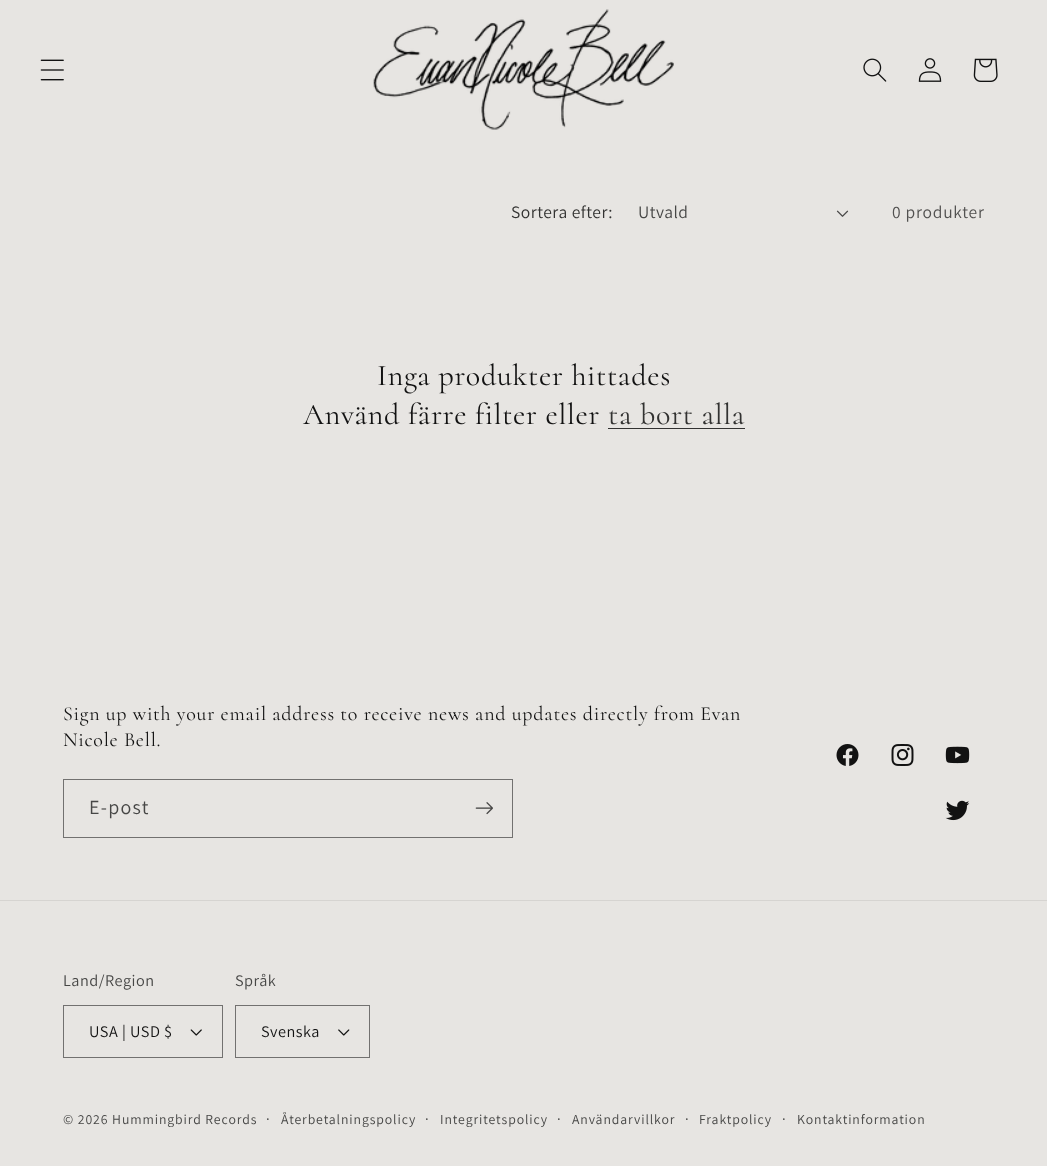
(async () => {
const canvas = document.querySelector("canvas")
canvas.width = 1047
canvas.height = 1166
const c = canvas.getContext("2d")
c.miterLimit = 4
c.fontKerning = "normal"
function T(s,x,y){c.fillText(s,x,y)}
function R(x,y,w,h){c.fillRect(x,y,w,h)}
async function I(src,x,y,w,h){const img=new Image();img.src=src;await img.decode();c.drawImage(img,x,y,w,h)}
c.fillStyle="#e7e5e2"
R(0,0,1047,1166)
await I("1.png",40,59,24,22)
await I("2.png",373,9,301,121)
await I("3.png",863,58,24,24)
await I("4.png",918,58,24,24)
await I("5.png",973,58,25,24)
c.letterSpacing="0.5px"
c.font="17.5px Assistant"
c.fillStyle="#323231"
T("Sortera efter:",511,218)
c.fillStyle="#474746"
T("Utvald",638,218)
await I("6.png",836,210,13,7)
c.letterSpacing="0.75px"
c.fillStyle="#525150"
T("0 produkter",892,218)
c.font="30px Cormorant"
c.fillStyle="#121212"
T("Inga produkter hittades",377,385)
T("Använd färre filter eller",303,424)
c.fillStyle="#323231"
T("ta bort alla",608,424)
R(608,428,137,1)
c.font="20px Cormorant"
c.fillStyle="#121212"
T("Sign up with your email address to receive news and updates directly from Evan",63,720)
T("Nicole Bell.",63,746)
c.strokeStyle="#727170"
c.strokeRect(63.5,779.5,449,58)
c.letterSpacing="1.25px"
c.font="20px Assistant"
c.fillStyle="#474746"
T("E-post",89,814)
await I("7.png",475,802,18,13)
await I("8.png",836,744,23,22)
await I("9.png",891,744,23,22)
await I("10.png",945,746,25,18)
await I("11.png",945,800,25,21)
c.fillStyle="#d6d4d1"
R(0,900,1047,1)
c.letterSpacing="0.5px"
c.font="16.25px Assistant"
c.fillStyle="#474746"
T("Land/Region",63,986)
await I("12.png",190,1029,12,7)
c.strokeRect(63.5,1005.5,159,52)
c.fillStyle="#121212"
T("USA | USD $",89,1037)
c.fillStyle="#474746"
T("Språk",235,986)
await I("13.png",338,1029,12,7)
c.strokeRect(235.5,1005.5,134,52)
c.fillStyle="#121212"
T("Svenska",261,1037)
c.letterSpacing="0.9px"
c.font="13.75px Assistant"
c.fillStyle="#474746"
T("© 2026 Hummingbird Records",63,1124)
c.font="15px Assistant"
T("·",266,1124)
c.font="13.75px Assistant"
T("Återbetalningspolicy",281,1124)
c.font="15px Assistant"
T("·",425,1124)
c.font="13.75px Assistant"
T("Integritetspolicy",440,1124)
c.font="15px Assistant"
T("·",557,1124)
c.font="13.75px Assistant"
T("Användarvillkor",572,1124)
c.font="15px Assistant"
T("·",685,1124)
c.font="13.75px Assistant"
T("Fraktpolicy",699,1124)
c.font="15px Assistant"
T("·",782,1124)
c.font="13.75px Assistant"
T("Kontaktinformation",797,1124)
})()
